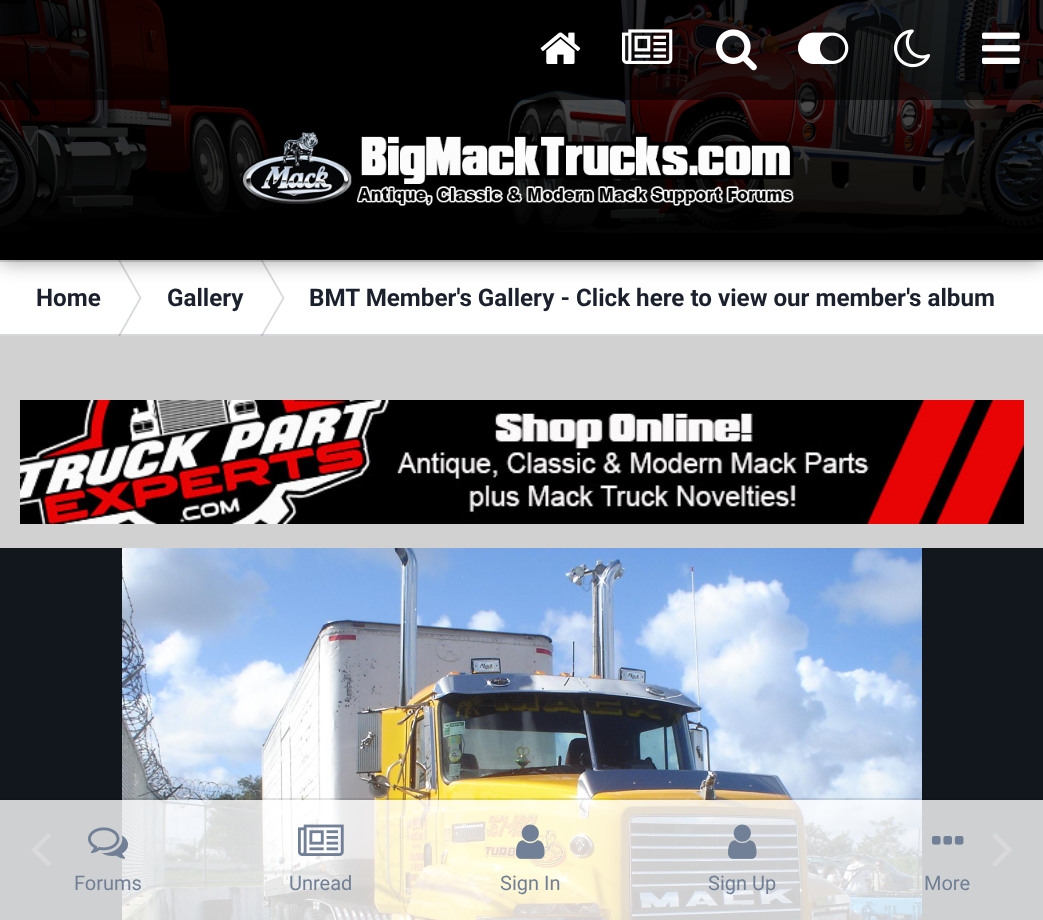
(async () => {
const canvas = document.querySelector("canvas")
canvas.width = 1043
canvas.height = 920
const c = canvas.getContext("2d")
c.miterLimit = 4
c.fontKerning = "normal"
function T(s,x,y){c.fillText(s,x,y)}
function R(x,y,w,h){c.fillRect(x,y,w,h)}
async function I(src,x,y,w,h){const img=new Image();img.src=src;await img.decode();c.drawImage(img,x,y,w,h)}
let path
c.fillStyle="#d1d1d1"
R(0,0,1043,920)
c.fillStyle="#fff"
R(0,260,1043,76)
c.fillStyle="#d7d8d9"
path = new Path2D("M118 260h2l21.5 38h-2z")
c.fill(path)
path = new Path2D("M260.5 260h2l22 38h-2z")
c.fill(path)
c.fillStyle="#353c4133"
R(0,260,1043,2)
c.fillStyle="#00000059"
c.filter="blur(10px)"
c.beginPath()
c.rect(0,2,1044,260)
c.fill()
c.filter="none"
c.fillStyle="#000"
R(0,233,1043,27)
await I("1.png",0,0,1043,233)
c.fillStyle="#00000099"
R(0,0,1043,100)
await I("2.png",540,32,41,32)
await I("3.png",622,29,51,35)
await I("4.png",716,29,41,42)
await I("5.png",798,32,51,32)
await I("6.png",894,29,37,39)
await I("7.png",982,32,38,32)
await I("8.png",241,132,553,74)
c.fillStyle="#d7d8d9"
path = new Path2D("M118 336h2l21.5-38h-2z")
c.fill(path)
path = new Path2D("M260.5 336h2l22-38h-2z")
c.fill(path)
c.fillStyle="#353c4133"
R(0,334,1043,2)
c.font="bold 24.2px Roboto"
c.fillStyle="#1a202c"
T("Home",36,306)
T("Gallery",167,306)
T("BMT Member's Gallery - Click here to view our member's album",309,306)
await I("9.png",20,400,1004,124)
c.fillStyle="#12161d"
R(0,548,1043,372)
await I("10.png",122,548,800,372)
await I("11.png",31,833,20,34)
await I("12.png",992,833,20,34)
c.fillStyle="#0000001a"
R(0,798,1043,2)
c.fillStyle="#ffffffcc"
R(0,800,1043,120)
await I("13.png",88,827,40,32)
c.font="20px Roboto"
c.fillStyle="#718096"
T("Forums",74,890)
await I("14.png",298,824,46,32)
T("Unread",289,890)
await I("15.png",516,824,29,35)
T("Sign In",500,890)
await I("16.png",728,824,29,35)
T("Sign Up",708,890)
await I("17.png",932,836,32,9)
T("More",924,890)
})()
